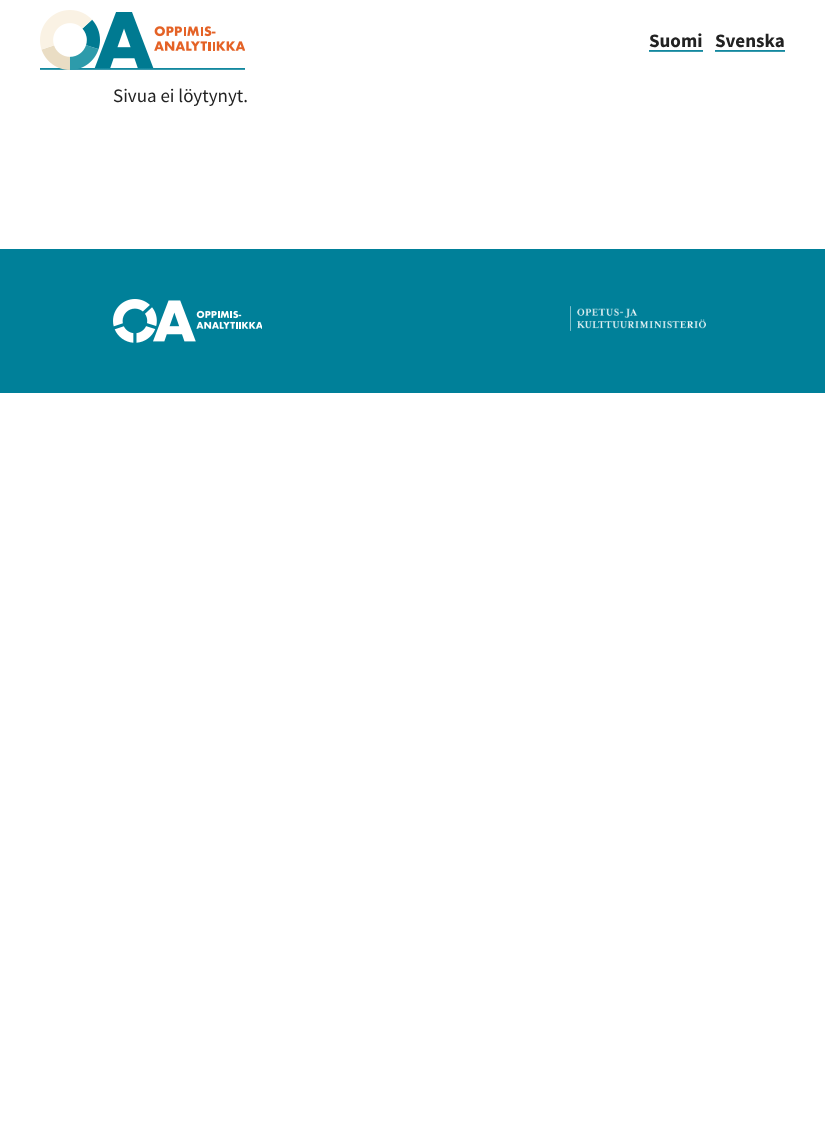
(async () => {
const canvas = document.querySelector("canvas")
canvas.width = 825
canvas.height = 1138
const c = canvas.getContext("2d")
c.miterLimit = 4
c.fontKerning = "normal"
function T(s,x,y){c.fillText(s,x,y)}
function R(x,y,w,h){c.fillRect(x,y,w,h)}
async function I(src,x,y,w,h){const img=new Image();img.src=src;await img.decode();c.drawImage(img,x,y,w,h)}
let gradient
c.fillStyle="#fff"
R(0,0,825,1138)
gradient = c.createLinearGradient(143,68,143,70)
gradient.addColorStop(0,"#008099")
gradient.addColorStop(1,"#4ba2b4")
c.fillStyle = gradient
R(40,68,205,2)
await I("1.png",40,10,205,60)
c.font="bold 19px Source Sans Pro"
c.fillStyle="#222"
T("Suomi",649,47)
gradient = c.createLinearGradient(676,50,676,52)
gradient.addColorStop(0,"#008099")
gradient.addColorStop(1,"#4ba2b4")
c.fillStyle = gradient
R(649,50,54,2)
c.fillStyle="#222"
T("Svenska",715,47)
gradient = c.createLinearGradient(750,50,750,52)
gradient.addColorStop(0,"#008099")
gradient.addColorStop(1,"#4ba2b4")
c.fillStyle = gradient
R(715,50,70,2)
c.font="19px Source Sans Pro"
c.fillStyle="#222"
T("Sivua ei löytynyt.",113,102)
c.fillStyle="#008099"
R(0,249,825,144)
await I("2.png",113,299,149,44)
await I("3.png",570,306,136,25)
})()
